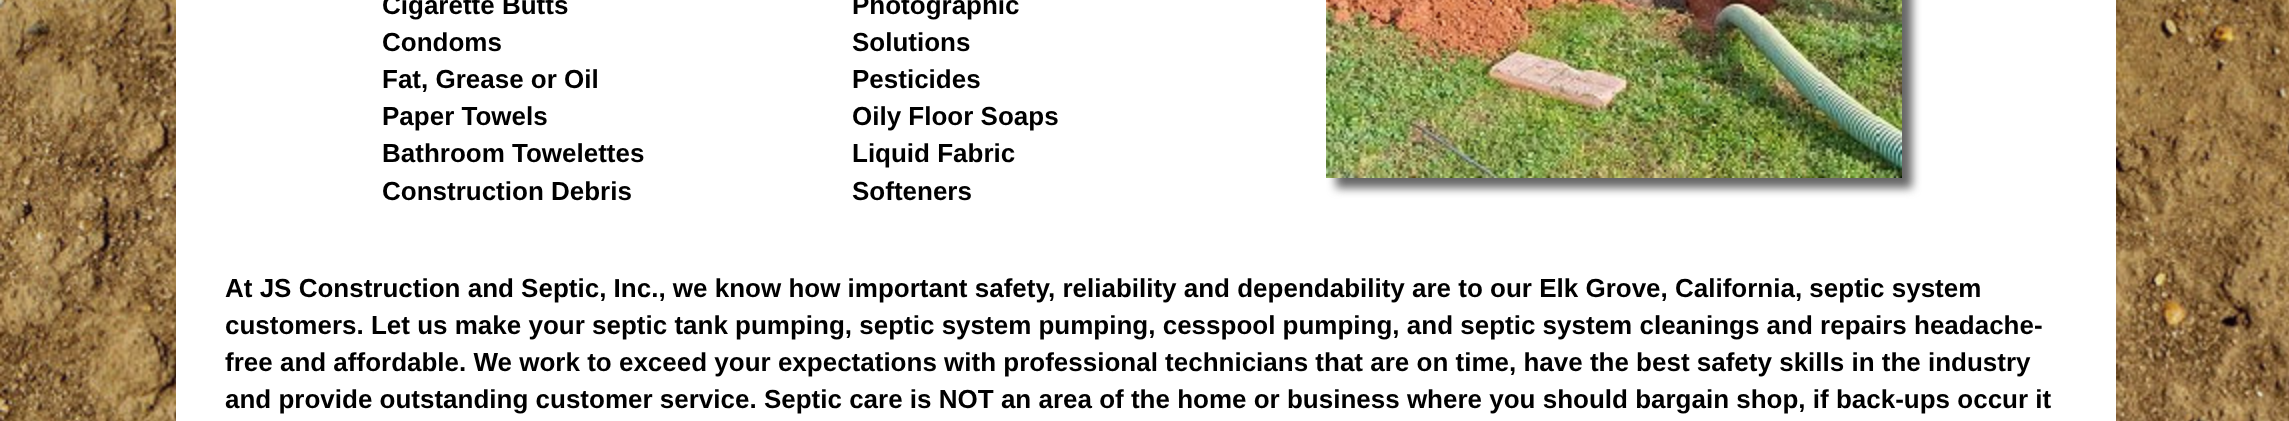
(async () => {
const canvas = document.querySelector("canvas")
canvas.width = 2289
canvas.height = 421
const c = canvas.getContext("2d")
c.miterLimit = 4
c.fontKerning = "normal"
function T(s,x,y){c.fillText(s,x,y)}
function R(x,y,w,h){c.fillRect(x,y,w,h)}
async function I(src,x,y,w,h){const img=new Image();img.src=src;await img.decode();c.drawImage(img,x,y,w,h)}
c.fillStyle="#fff"
R(0,0,2289,421)
await I("1.png",0,0,2289,421)
R(176,0,1940,421)
c.font="bold 26px Liberation Sans"
c.fillStyle="#000"
T("Cigarette Butts",382,14)
T("Condoms",382,51)
T("Fat, Grease or Oil",382,88)
T("Paper Towels",382,125)
T("Bathroom Towelettes",382,162)
T("Construction Debris",382,200)
T("Photographic",852,14)
T("Solutions",852,51)
T("Pesticides",852,88)
T("Oily Floor Soaps",852,125)
T("Liquid Fabric",852,162)
T("Softeners",852,200)
c.fillStyle="#666"
c.filter="blur(5px)"
c.beginPath()
c.rect(1336,-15,576,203)
c.fill()
c.filter="none"
await I("2.png",1326,0,576,178)
c.fillStyle="#000"
T("At JS Construction and Septic, Inc., we know how important safety, reliability and dependability are to our Elk Grove, California, septic system",225,297)
T("customers. Let us make your septic tank pumping, septic system pumping, cesspool pumping, and septic system cleanings and repairs headache-",225,334)
T("free and affordable. We work to exceed your expectations with professional technicians that are on time, have the best safety skills in the industry",225,371)
T("and provide outstanding customer service. Septic care is NOT an area of the home or business where you should bargain shop, if back-ups occur it",225,408)
})()
